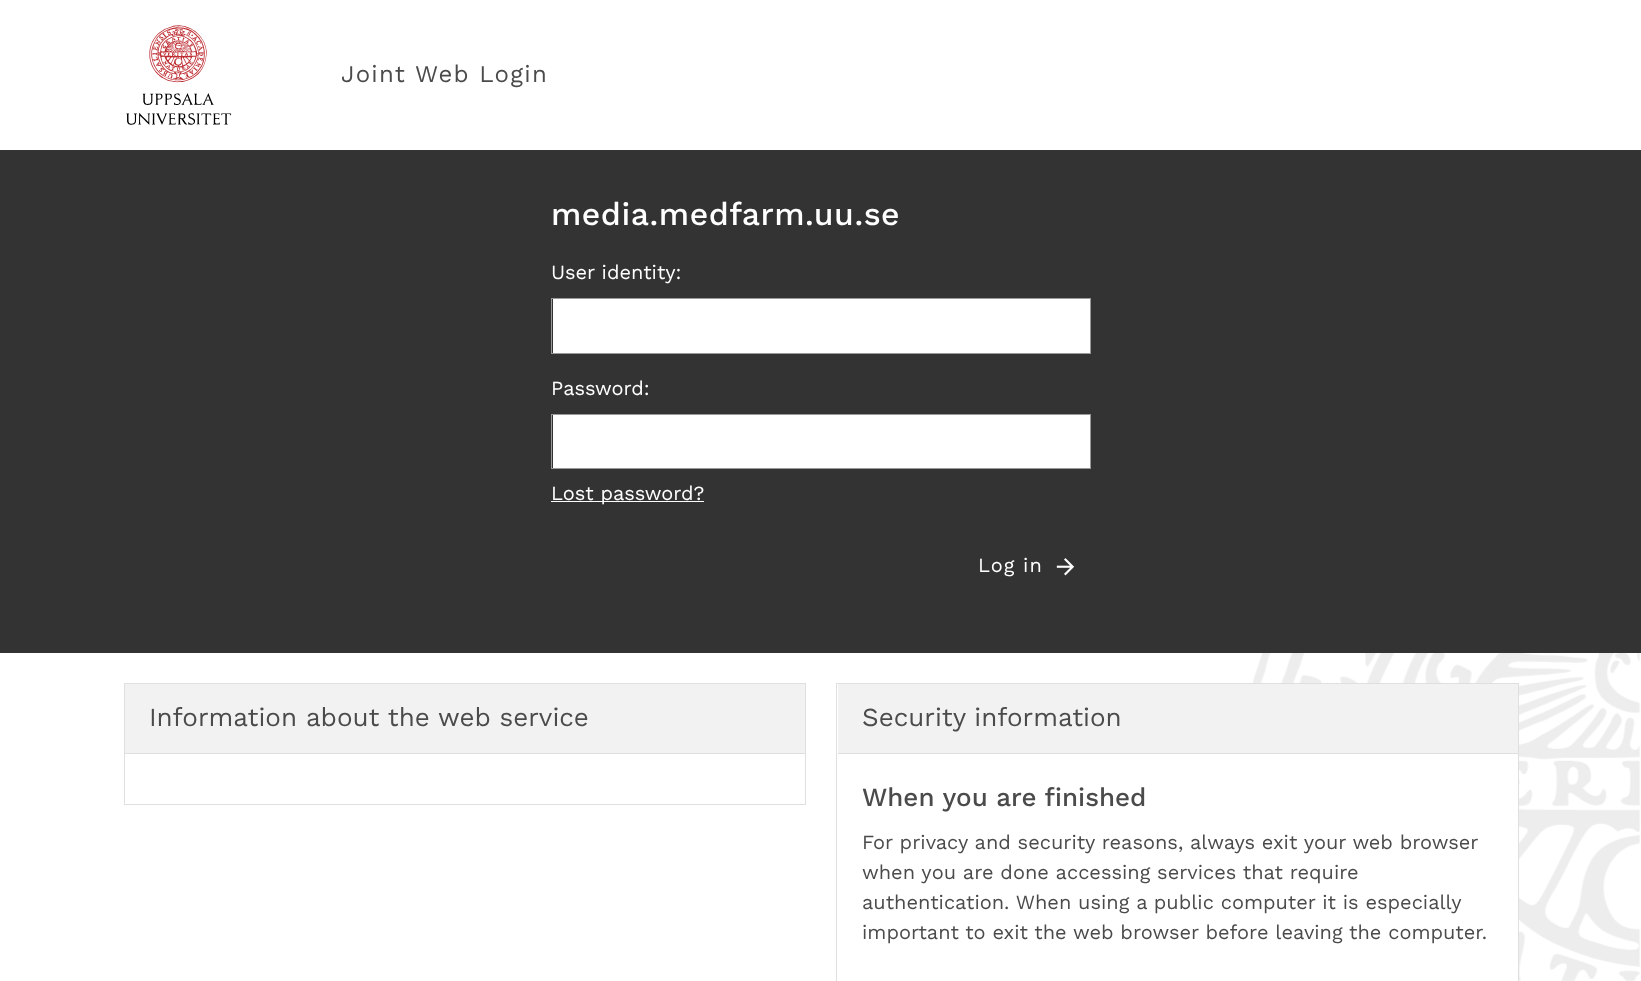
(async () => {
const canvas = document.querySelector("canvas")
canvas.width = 1641
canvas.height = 981
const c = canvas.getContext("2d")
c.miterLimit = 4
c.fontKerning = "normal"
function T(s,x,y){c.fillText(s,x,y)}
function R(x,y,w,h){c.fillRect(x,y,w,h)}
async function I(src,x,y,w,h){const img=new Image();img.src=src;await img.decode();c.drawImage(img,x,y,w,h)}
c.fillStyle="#fff"
R(0,0,1641,981)
await I("1.png",126,25,106,100)
c.letterSpacing="1.25px"
c.font="24px Work Sans"
c.fillStyle="#4b4b4b"
T("Joint Web Login",341,82)
c.fillStyle="#333"
R(0,150,1641,503)
c.letterSpacing="0.5px"
c.font="500 32px Work Sans"
c.fillStyle="#fff"
T("media.medfarm.uu.se",551,225)
c.letterSpacing="0px"
c.font="20px Work Sans"
T("User identity:",551,279)
R(553,299,537,54)
c.strokeStyle="#999"
c.strokeRect(551.5,298.5,539,55)
T("Password:",551,395)
R(553,415,537,53)
c.strokeRect(551.5,414.5,539,54)
R(551,501,153,1)
T("Lost password?",551,500)
c.letterSpacing="1px"
T("Log in",978,572)
await I("2.png",1056,558,19,18)
c.strokeStyle="#dfdfdf"
c.strokeRect(124.5,683.5,681,121)
c.fillStyle="#f2f2f2"
R(125,684,680,69)
c.fillStyle="#dfdfdf"
R(125,753,680,1)
c.letterSpacing="0px"
c.font="26px Work Sans"
c.fillStyle="#4b4b4b"
T("Information about the web service",149,726)
await I("3.png",1252,653,389,328)
c.fillStyle="#fff"
R(1252,684,266,297)
c.strokeRect(836.5,683.5,682,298)
c.fillStyle="#f2f2f2"
R(838,684,680,69)
c.fillStyle="#dfdfdf"
R(838,753,680,1)
c.fillStyle="#4b4b4b"
T("Security information",862,726)
c.font="500 26px Work Sans"
T("When you are finished",862,806)
c.font="20px Work Sans"
T("For privacy and security reasons, always exit your web browser",862,849)
T("when you are done accessing services that require",862,879)
T("authentication. When using a public computer it is especially",862,909)
T("important to exit the web browser before leaving the computer.",862,939)
})()
